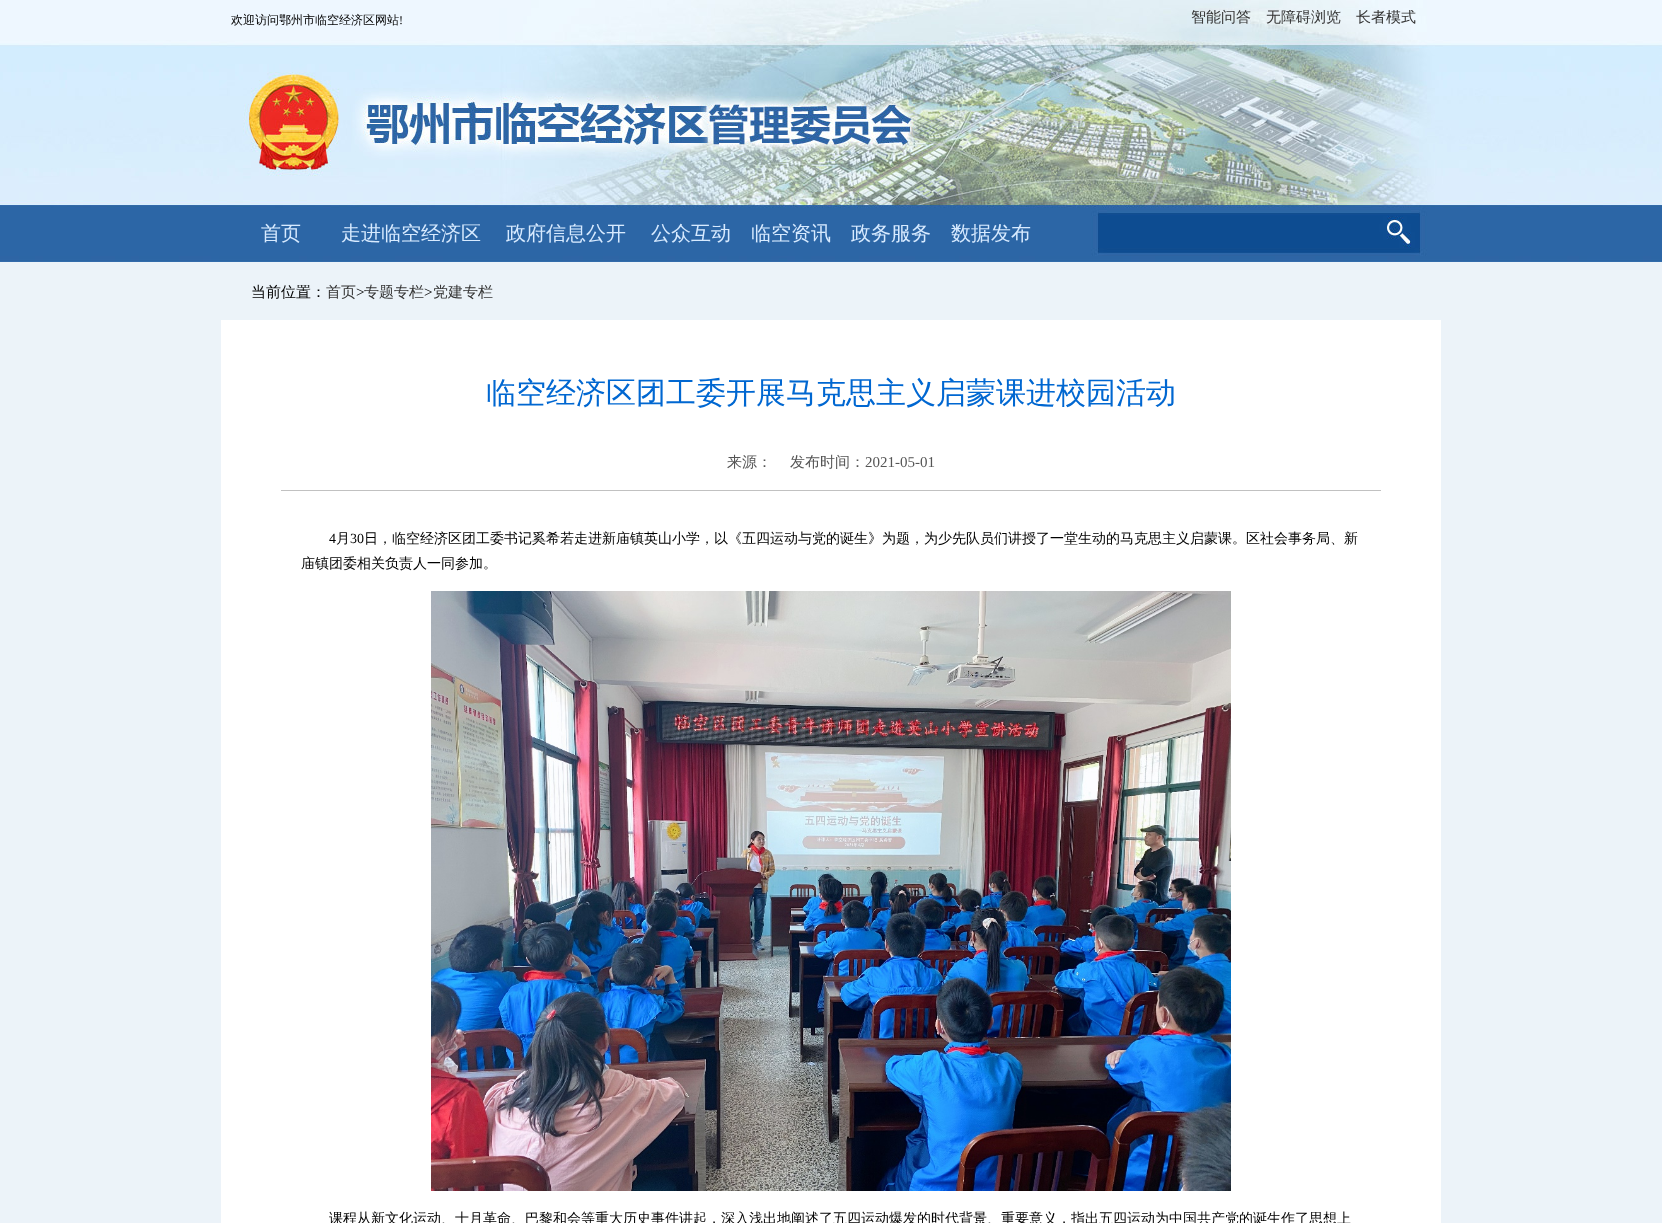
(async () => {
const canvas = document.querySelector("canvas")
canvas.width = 1662
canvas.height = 1223
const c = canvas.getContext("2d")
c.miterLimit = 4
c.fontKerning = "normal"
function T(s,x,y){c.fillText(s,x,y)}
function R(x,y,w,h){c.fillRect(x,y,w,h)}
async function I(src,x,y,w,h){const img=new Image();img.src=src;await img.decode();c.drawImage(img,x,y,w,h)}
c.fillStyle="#ecf3f9"
R(0,0,1662,1223)
await I("1.png",0,0,1662,262)
c.font="500 12px WenQuanYi Zen Hei"
c.fillStyle="#000"
T("欢迎访问鄂州市临空经济区网站",231,24)
c.font="12px Liberation Serif"
T("!",399,24)
c.font="500 15px WenQuanYi Zen Hei"
c.fillStyle="#343434"
T("智能问答",1191,22)
c.save()
c.beginPath()
c.rect(951,10,480,40)
c.clip()
T("无障碍浏览",1266,22)
T("长者模式",1356,22)
c.restore()
c.font="500 20px WenQuanYi Zen Hei"
c.fillStyle="#d7eaff"
T("首页",261,240)
T("走进临空经济区",341,240)
T("政府信息公开",506,240)
T("公众互动",651,240)
T("临空资讯",751,240)
T("政务服务",851,240)
T("数据发布",951,240)
c.font="500 15px WenQuanYi Zen Hei"
c.fillStyle="#000"
T("当前位置：",251,297)
c.fillStyle="#343434"
T("首页",326,297)
c.font="15px Liberation Serif"
c.fillStyle="#000"
T(">",356,297)
c.font="500 15px WenQuanYi Zen Hei"
c.fillStyle="#343434"
T("专题专栏",364,297)
c.font="15px Liberation Serif"
c.fillStyle="#000"
T(">",424,297)
c.font="500 15px WenQuanYi Zen Hei"
c.fillStyle="#343434"
T("党建专栏",433,297)
c.fillStyle="#fff"
R(221,320,1220,903)
c.font="500 30px WenQuanYi Zen Hei"
c.fillStyle="#0067d1"
T("临空经济区团工委开展马克思主义启蒙课进校园活动",486,403)
c.fillStyle="#c1c1c1"
R(281,490,1100,1)
c.font="500 15px WenQuanYi Zen Hei"
c.fillStyle="#555"
T("来源：",727,467)
T("发布时间：",790,467)
c.font="15px Liberation Serif"
T("2021-05-01",865,467)
c.font="14px Liberation Serif"
c.fillStyle="#000"
T("4",329,543)
c.font="500 14px WenQuanYi Zen Hei"
T("月",336,543)
c.font="14px Liberation Serif"
T("30",350,543)
c.font="500 14px WenQuanYi Zen Hei"
T("日，临空经济区团工委书记奚希若走进新庙镇英山小学，以《五四运动与党的诞生》为题，为少先队员们讲授了一堂生动的马克思主义启蒙课。区社会事务局、新",364,543)
T("庙镇团委相关负责人一同参加。",301,568)
await I("2.png",431,591,800,600)
T("课程从新文化运动、十月革命、巴黎和会等重大历史事件讲起，深入浅出地阐述了五四运动爆发的时代背景、重要意义，指出五四运动为中国共产党的诞生作了思想上",329,1223)
})()
